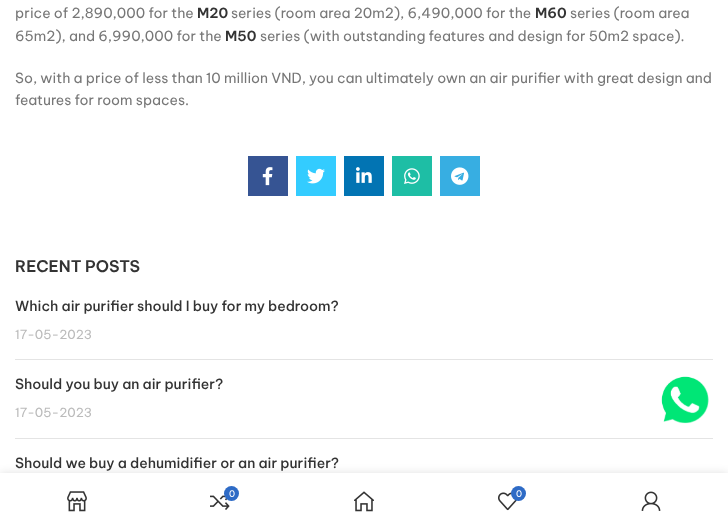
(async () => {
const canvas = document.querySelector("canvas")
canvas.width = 728
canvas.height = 528
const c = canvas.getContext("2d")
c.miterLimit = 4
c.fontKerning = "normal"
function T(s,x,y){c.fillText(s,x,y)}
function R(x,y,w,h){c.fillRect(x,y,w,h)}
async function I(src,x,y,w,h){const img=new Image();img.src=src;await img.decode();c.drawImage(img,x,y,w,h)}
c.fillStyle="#fff"
R(0,0,728,528)
c.font="14px Be Vietnam Pro"
c.fillStyle="#777"
T("price of 2,890,000 for the",15,18)
c.font="600 14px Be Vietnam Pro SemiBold"
c.fillStyle="#333"
T("M20",197,18)
c.font="14px Be Vietnam Pro"
c.fillStyle="#777"
T("series (room area 20m2), 6,490,000 for the",231,18)
c.font="600 14px Be Vietnam Pro SemiBold"
c.fillStyle="#333"
T("M60",535,18)
c.font="14px Be Vietnam Pro"
c.fillStyle="#777"
T("series (room area",570,18)
T("65m2), and 6,990,000 for the",15,41)
c.font="600 14px Be Vietnam Pro SemiBold"
c.fillStyle="#333"
T("M50",225,41)
c.font="14px Be Vietnam Pro"
c.fillStyle="#777"
T("series (with outstanding features and design for 50m2 space).",260,41)
T("So, with a price of less than 10 million VND, you can ultimately own an air purifier with great design and",15,83)
T("features for room spaces.",15,105)
c.fillStyle="#365493"
R(248,156,40,40)
await I("1.png",262,167,11,19)
c.fillStyle="#3cf"
R(296,156,40,40)
await I("2.png",307,168,18,16)
c.fillStyle="#0274b3"
R(344,156,40,40)
await I("3.png",356,167,16,16)
c.fillStyle="#1ebea5"
R(392,156,40,40)
await I("4.png",404,168,16,16)
c.fillStyle="#37aee2"
R(440,156,40,40)
await I("5.png",451,167,18,18)
c.font="600 16px Be Vietnam Pro SemiBold"
c.fillStyle="#333"
T("RECENT POSTS",15,272)
c.fillStyle="#e4e4e4"
R(15,359,698,1)
c.font="500 14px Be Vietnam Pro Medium"
c.fillStyle="#333"
T("Which air purifier should I buy for my bedroom?",15,311)
c.font="12.5px Be Vietnam Pro"
c.fillStyle="#bbb"
T("17-05-2023",15,339)
c.fillStyle="#e4e4e4"
R(15,438,698,1)
c.font="500 14px Be Vietnam Pro Medium"
c.fillStyle="#333"
T("Should you buy an air purifier?",15,389)
c.font="12.5px Be Vietnam Pro"
c.fillStyle="#bbb"
T("17-05-2023",15,417)
c.font="500 14px Be Vietnam Pro Medium"
c.fillStyle="#333"
T("Should we buy a dehumidifier or an air purifier?",15,468)
await I("6.png",661,376,48,48)
c.fillStyle="#0000001f"
c.filter="blur(4.5px)"
c.beginPath()
c.rect(0,473,728,55)
c.fill()
c.filter="none"
c.fillStyle="#fff"
R(0,473,728,55)
await I("7.png",67,491,20,21)
await I("8.png",210,495,20,15)
c.fillStyle="#2e6bc6"
c.beginPath()
c.arc(231.5,493.5,7.5,0,7)
c.fill()
c.font="9px Be Vietnam Pro"
c.fillStyle="#fff"
T("0",229,497)
await I("9.png",354,491,20,21)
await I("10.png",498,492,19,19)
c.fillStyle="#2e6bc6"
c.beginPath()
c.arc(518.5,493.5,7.5,0,7)
c.fill()
c.fillStyle="#fff"
T("0",516,497)
await I("11.png",641,491,20,20)
})()
